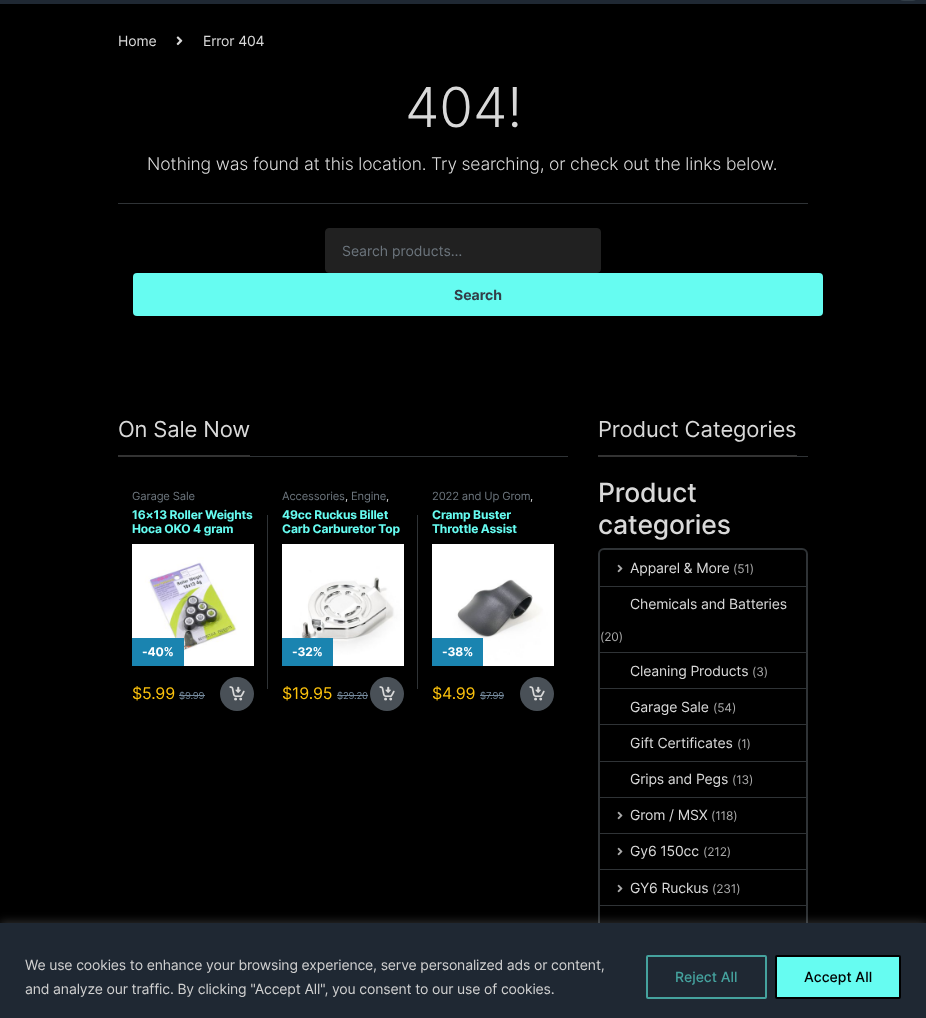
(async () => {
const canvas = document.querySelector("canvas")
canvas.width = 926
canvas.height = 1018
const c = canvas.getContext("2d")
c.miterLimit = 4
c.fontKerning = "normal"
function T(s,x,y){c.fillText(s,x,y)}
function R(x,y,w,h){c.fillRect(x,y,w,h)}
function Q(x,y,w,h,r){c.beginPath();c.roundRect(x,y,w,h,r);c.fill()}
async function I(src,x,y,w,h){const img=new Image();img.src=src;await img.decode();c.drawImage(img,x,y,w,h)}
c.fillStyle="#000"
R(0,0,926,1018)
c.fillStyle="#1f2833"
R(0,0,926,4)
c.fillStyle="#333e48"
Q(898,-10,20,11,10)
c.letterSpacing="-0.15px"
c.font="14px Inter"
c.fillStyle="#d9d9d9"
T("Home",118,46)
await I("1.png",176,36,7,10)
T("Error 404",203,46)
c.font="300 55px Inter"
T("404!",405,127)
c.font="300 17.5px Inter"
T("Nothing was found at this location. Try searching, or check out the links below.",147,170)
c.fillStyle="#2f3336"
R(118,203,690,1)
c.fillStyle="#212121"
c.beginPath()
c.roundRect(325.5,228.5,275,44,3.5)
c.fill()
c.strokeStyle="#212121"
c.stroke()
c.letterSpacing="0px"
c.font="14px Inter"
c.fillStyle="#6c757d"
T("Search products…",342,256)
c.fillStyle="#66fcf1"
Q(133,273,690,43,4)
c.font="bold 14px Inter"
c.fillStyle="#333e48"
T("Search",454,300)
c.fillStyle="#2f3336"
R(250,456,318,1)
c.letterSpacing="-0.15px"
c.font="22px Inter"
c.fillStyle="#d9d9d9"
T("On Sale Now",118,437)
c.fillStyle="#333"
R(118,455,132,2)
c.font="11.25px Inter"
c.fillStyle="#6c757d"
T("Garage Sale",132,500)
c.font="bold 12px Inter"
c.fillStyle="#66fcf1"
T("16×13 Roller Weights",132,519)
T("Hoca OKO 4 gram",132,533)
await I("2.png",132,544,122,122)
c.fillStyle="#1a84b0"
R(132,638,52,28)
c.fillStyle="#fff"
T("-40%",142,656)
c.font="16px Inter"
c.fillStyle="#fcc20c"
T("$5.99",132,699)
c.font="9.5px Inter"
c.fillStyle="#768b9e"
T("$9.99",179,699)
R(179,695,26,1)
c.fillStyle="#495057"
c.beginPath()
c.arc(237,694,17,0,7)
c.fill()
await I("3.png",229,686,16,15)
c.fillStyle="#2f3336"
R(267,515,1,174)
c.font="11.25px Inter"
c.fillStyle="#6c757d"
T("Accessories",282,500)
c.fillStyle="#d9d9d9"
T(",",345,500)
c.fillStyle="#6c757d"
T("Engine",351,500)
c.fillStyle="#d9d9d9"
T(",",386,500)
c.font="bold 12px Inter"
c.fillStyle="#66fcf1"
T("49cc Ruckus Billet",282,519)
T("Carb Carburetor Top",282,533)
await I("4.png",282,544,122,122)
c.fillStyle="#1a84b0"
R(282,638,51,28)
c.fillStyle="#fff"
T("-32%",292,656)
c.font="16px Inter"
c.fillStyle="#fcc20c"
T("$19.95",282,699)
c.font="9.5px Inter"
c.fillStyle="#768b9e"
T("$29.20",337,699)
R(337,695,31,1)
c.fillStyle="#495057"
c.beginPath()
c.arc(387,694,17,0,7)
c.fill()
await I("3.png",379,686,16,15)
c.fillStyle="#2f3336"
R(417,515,1,174)
c.font="11.25px Inter"
c.fillStyle="#6c757d"
T("2022 and Up Grom",432,500)
c.fillStyle="#d9d9d9"
T(",",530,500)
c.font="bold 12px Inter"
c.fillStyle="#66fcf1"
T("Cramp Buster",432,519)
T("Throttle Assist",432,533)
await I("5.png",432,544,122,122)
c.fillStyle="#1a84b0"
R(432,638,51,28)
c.fillStyle="#fff"
T("-38%",442,656)
c.font="16px Inter"
c.fillStyle="#fcc20c"
T("$4.99",432,699)
c.font="9.5px Inter"
c.fillStyle="#768b9e"
T("$7.99",480,699)
R(480,695,24,1)
c.fillStyle="#495057"
c.beginPath()
c.arc(537,694,17,0,7)
c.fill()
await I("3.png",529,686,16,15)
c.fillStyle="#2f3336"
R(797,456,11,1)
c.font="22px Inter"
c.fillStyle="#d9d9d9"
T("Product Categories",598,437)
c.fillStyle="#333"
R(598,455,199,2)
c.font="500 26.5px Inter"
c.fillStyle="#d9d9d9"
T("Product",598,502)
T("categories",598,534)
c.beginPath()
c.roundRect(599,549,208,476,5)
c.strokeStyle="#2f3336"
c.lineWidth=2
c.stroke()
await I("6.png",617,564,6,9)
c.font="14px Inter"
T("Apparel & More",630,573)
c.font="12px Inter"
c.fillStyle="#aaa"
T("(51)",733,573)
c.fillStyle="#2f3336"
R(600,586,206,1)
c.font="14px Inter"
c.fillStyle="#d9d9d9"
T("Chemicals and Batteries",630,609)
c.font="12px Inter"
c.fillStyle="#aaa"
T("(20)",600,641)
c.fillStyle="#2f3336"
R(600,652,206,1)
c.font="14px Inter"
c.fillStyle="#d9d9d9"
T("Cleaning Products",630,676)
c.font="12px Inter"
c.fillStyle="#aaa"
T("(3)",752,676)
c.fillStyle="#2f3336"
R(600,688,206,1)
c.font="14px Inter"
c.fillStyle="#d9d9d9"
T("Garage Sale",630,712)
c.font="12px Inter"
c.fillStyle="#aaa"
T("(54)",713,712)
c.fillStyle="#2f3336"
R(600,724,206,1)
c.font="14px Inter"
c.fillStyle="#d9d9d9"
T("Gift Certificates",630,748)
c.font="12px Inter"
c.fillStyle="#aaa"
T("(1)",737,748)
c.fillStyle="#2f3336"
R(600,761,206,1)
c.font="14px Inter"
c.fillStyle="#d9d9d9"
T("Grips and Pegs",630,784)
c.font="12px Inter"
c.fillStyle="#aaa"
T("(13)",732,784)
c.fillStyle="#2f3336"
R(600,797,206,1)
await I("6.png",617,811,6,9)
c.font="14px Inter"
c.fillStyle="#d9d9d9"
T("Grom / MSX",630,820)
c.font="12px Inter"
c.fillStyle="#aaa"
T("(118)",711,820)
c.fillStyle="#2f3336"
R(600,833,206,1)
await I("6.png",617,847,6,9)
c.font="14px Inter"
c.fillStyle="#d9d9d9"
T("Gy6 150cc",630,856)
c.font="12px Inter"
c.fillStyle="#aaa"
T("(212)",703,856)
c.fillStyle="#2f3336"
R(600,869,206,1)
await I("6.png",617,884,6,9)
c.font="14px Inter"
c.fillStyle="#d9d9d9"
T("GY6 Ruckus",630,893)
c.font="12px Inter"
c.fillStyle="#aaa"
T("(231)",712,893)
c.fillStyle="#2f3336"
R(600,905,206,1)
c.fillStyle="#acabab4d"
c.filter="blur(5px)"
c.beginPath()
c.rect(0,922,926,95)
c.fill()
c.filter="none"
c.fillStyle="#1f2833"
R(0,923,926,95)
c.font="14px Inter"
c.fillStyle="#d0d0d0"
T("We use cookies to enhance your browsing experience, serve personalized ads or content,",25,970)
T("and analyze our traffic. By clicking \"Accept All\", you consent to our use of cookies.",25,994)
c.beginPath()
c.roundRect(647,956,119,42,1)
c.strokeStyle="#45a29e"
c.stroke()
c.letterSpacing="0px"
c.font="500 14px Inter"
c.fillStyle="#45a29e"
T("Reject All",675,982)
c.fillStyle="#66fcf1"
c.beginPath()
c.roundRect(776,956,124,42,1)
c.fill()
c.strokeStyle="#000"
c.stroke()
c.fillStyle="#000"
T("Accept All",804,982)
})()
